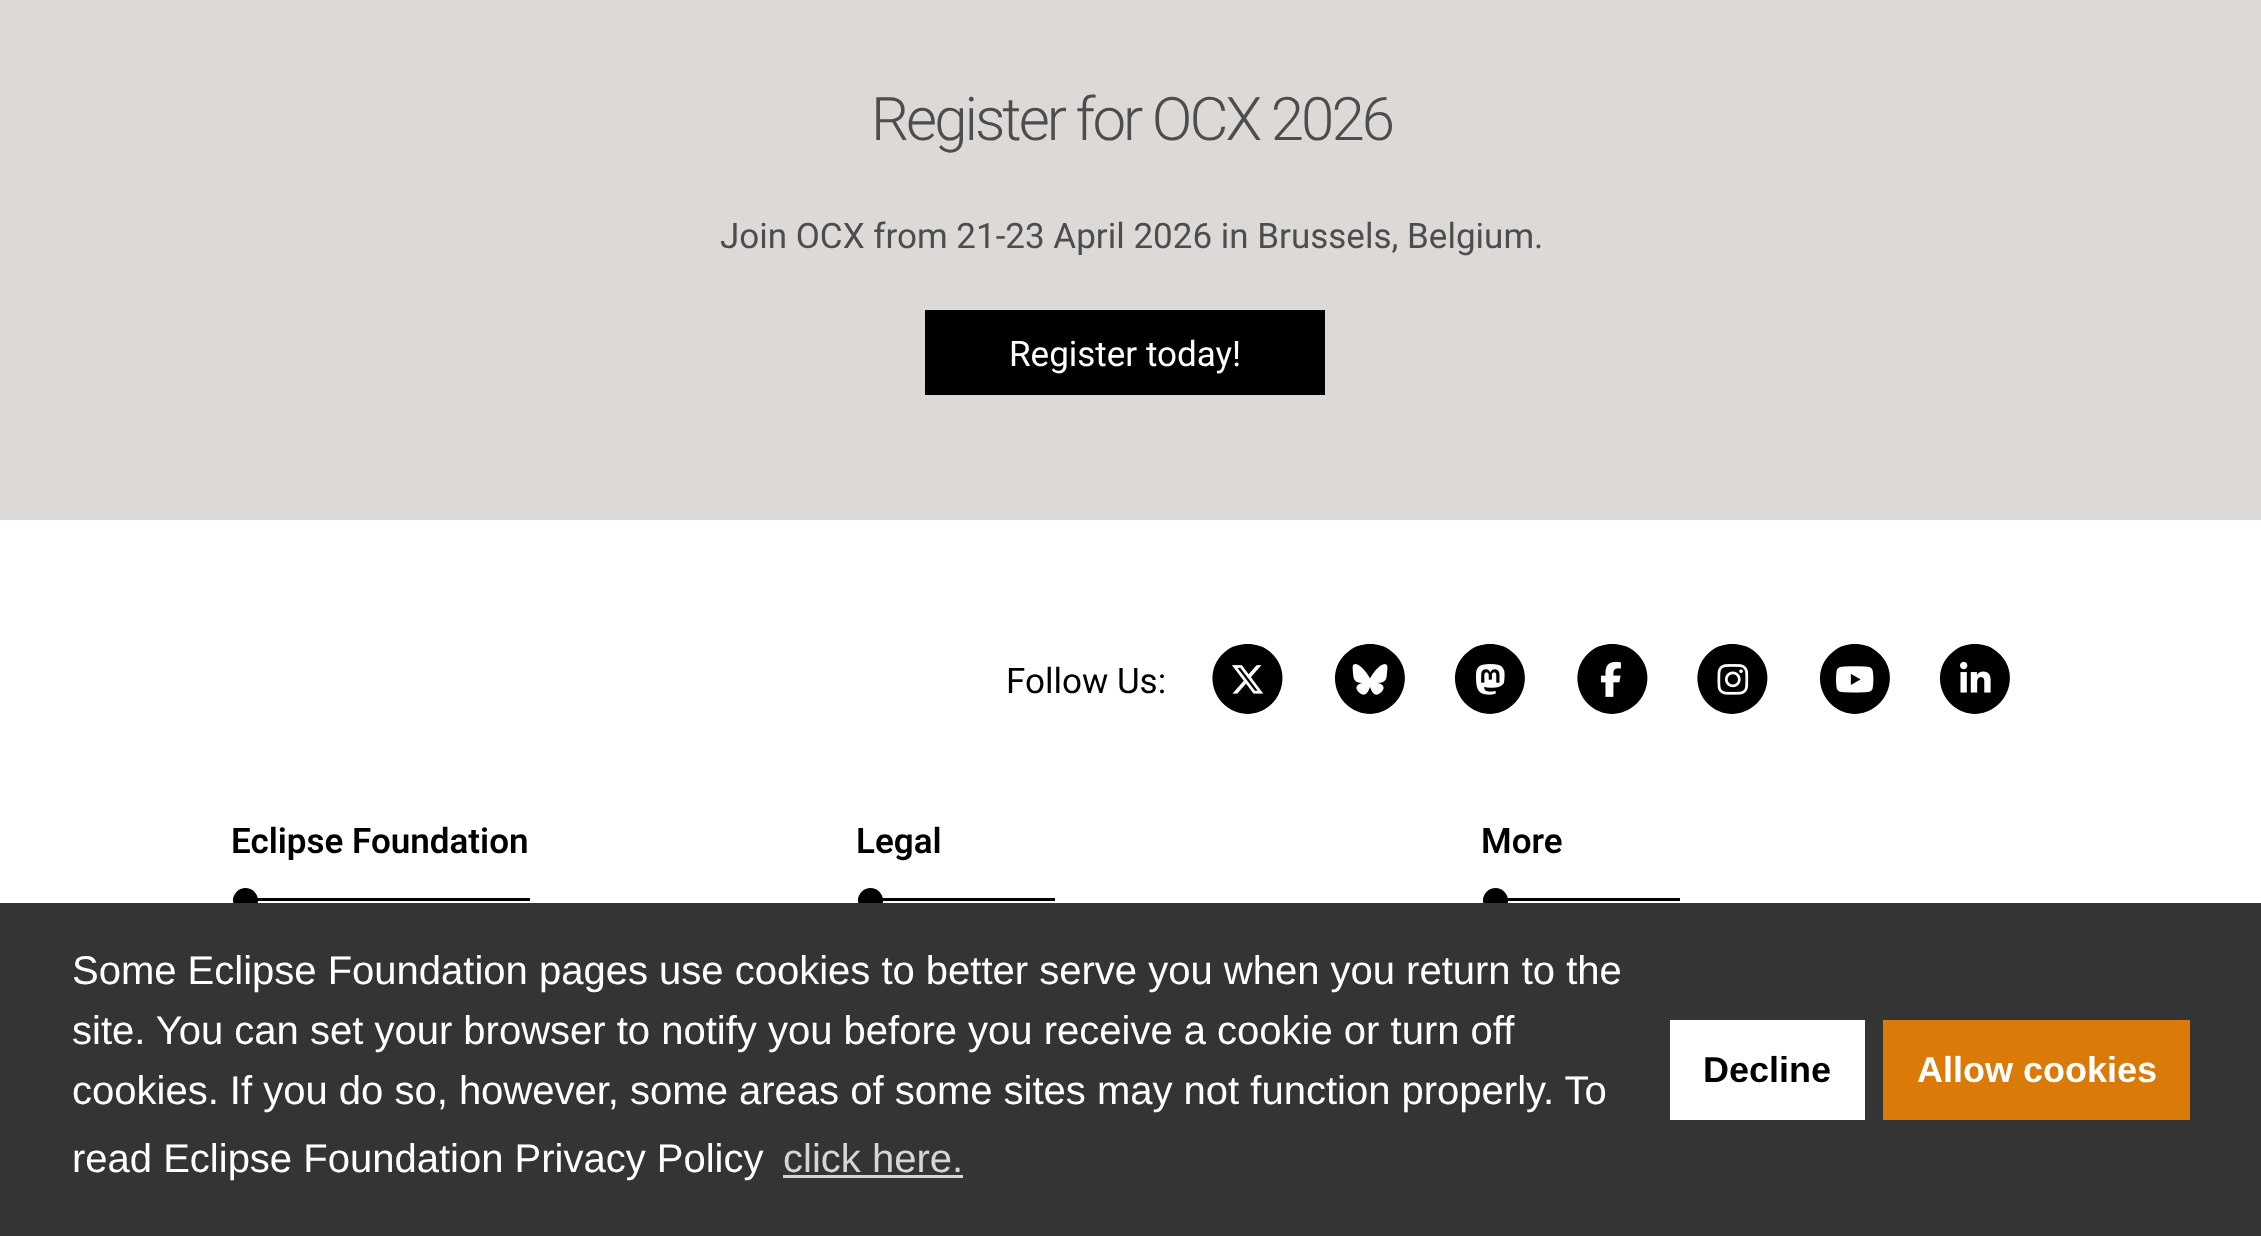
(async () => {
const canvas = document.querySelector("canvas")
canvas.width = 2261
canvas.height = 1236
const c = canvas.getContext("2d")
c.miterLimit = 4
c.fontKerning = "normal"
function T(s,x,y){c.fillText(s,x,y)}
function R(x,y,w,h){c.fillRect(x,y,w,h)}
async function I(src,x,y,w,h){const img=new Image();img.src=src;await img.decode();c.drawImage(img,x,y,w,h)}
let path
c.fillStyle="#fff"
R(0,0,2261,1236)
c.fillStyle="#ddd9d6"
R(0,0,2261,520)
c.letterSpacing="-3px"
c.font="300 60px Roboto"
c.fillStyle="#4c4d4e"
T("Register for OCX 2026",871,140)
c.letterSpacing="0px"
c.font="35px Roboto"
T("Join OCX from 21-23 April 2026 in Brussels, Belgium.",720,248)
c.fillStyle="#000"
R(925,310,400,85)
c.fillStyle="#fff"
T("Register today!",1009,366)
c.fillStyle="#000"
T("Follow Us:",1006,693)
path = new Path2D("M1248 714c33-1 47-43 21-63c-6-5-14-7-21-7c-8 0-16 2-22 7c-26 20-12 62 22 63z")
c.fill(path)
await I("1.png",1232,665,32,29)
path = new Path2D("M1370 714c33-1 48-43 21-63c-6-5-13-7-21-7c-8 0-15 2-21 7c-27 20-12 62 21 63z")
c.fill(path)
await I("2.png",1352,664,36,31)
path = new Path2D("M1490 714c33-1 48-43 21-63c-6-5-13-7-21-7c-8 0-15 2-21 7c-27 20-12 62 21 63z")
c.fill(path)
await I("3.png",1476,664,29,31)
path = new Path2D("M1612 714c34-1 48-43 22-63c-6-5-14-7-22-7c-7 0-15 2-21 7c-26 20-12 62 21 63z")
c.fill(path)
await I("4.png",1600,661,21,36)
path = new Path2D("M1732 714c34-1 48-43 22-63c-6-5-14-7-22-7c-7 0-15 2-21 7c-26 20-12 62 21 63z")
c.fill(path)
await I("5.png",1717,664,32,31)
path = new Path2D("M1855 714c33-1 48-43 21-63c-6-5-13-7-21-7c-8 0-15 2-21 7c-27 20-12 62 21 63z")
c.fill(path)
await I("6.png",1836,666,38,27)
path = new Path2D("M1975 714c33-1 48-43 21-63c-6-5-13-7-21-7c-8 0-15 2-21 7c-27 20-12 62 21 63z")
c.fill(path)
await I("7.png",1960,661,31,32)
c.font="600 35px Roboto"
T("Eclipse Foundation",231,853)
R(233,898,297,3)
c.beginPath()
c.arc(245.5,900.5,12.5,0,7)
c.fill()
T("Legal",856,853)
R(858,898,197,3)
c.beginPath()
c.arc(870.5,900.5,12.5,0,7)
c.fill()
T("More",1481,853)
R(1483,898,197,3)
c.beginPath()
c.arc(1495.5,900.5,12.5,0,7)
c.fill()
c.fillStyle="#353434"
R(0,903,2261,333)
c.font="40px Liberation Sans"
c.fillStyle="#fff"
T("Some Eclipse Foundation pages use cookies to better serve you when you return to the",72,984)
T("site. You can set your browser to notify you before you receive a cookie or turn off",72,1044)
T("cookies. If you do so, however, some areas of some sites may not function properly. To",72,1104)
T("read Eclipse Foundation Privacy Policy",72,1172)
c.fillStyle="#d7d6d6"
T("click here.",783,1172)
R(783,1175,180,3)
c.fillStyle="#fff"
R(1670,1020,195,100)
c.font="bold 36px Liberation Sans"
c.fillStyle="#000"
T("Decline",1703,1082)
c.fillStyle="#da7a08"
R(1883,1020,307,100)
c.fillStyle="#fff"
T("Allow cookies",1917,1082)
})()
